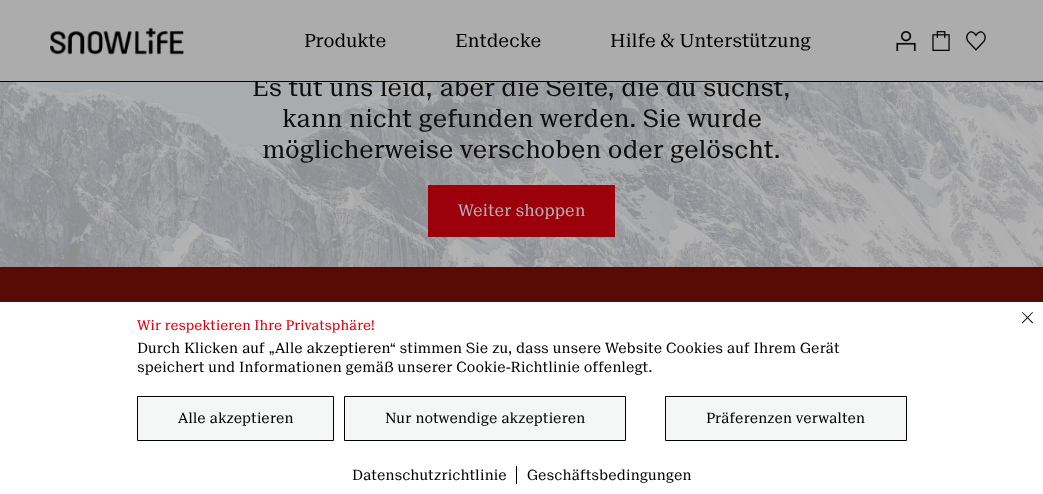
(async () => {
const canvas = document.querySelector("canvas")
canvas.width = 1043
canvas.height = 494
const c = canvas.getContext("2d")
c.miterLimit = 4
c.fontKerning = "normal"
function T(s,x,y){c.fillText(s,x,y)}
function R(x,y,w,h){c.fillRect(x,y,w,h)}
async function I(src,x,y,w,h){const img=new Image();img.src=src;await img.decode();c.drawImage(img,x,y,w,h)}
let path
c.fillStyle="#570b04"
R(0,0,1043,494)
await I("5.png",0,82,1043,185)
c.font="24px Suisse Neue"
c.fillStyle="#0d0d0d"
T("Es tut uns leid, aber die Seite, die du suchst,",252,96)
c.fillStyle="#acacac"
R(0,0,1043,81)
await I("1.png",50,27,134,28)
c.font="18px Suisse Neue"
c.fillStyle="#000"
T("Produkte",304,47)
T("Entdecke",455,47)
T("Hilfe & Unterstützung",610,47)
await I("2.png",896,31,20,20)
await I("3.png",932,31,18,20)
await I("4.png",966,31,20,20)
R(0,81,1043,1)
c.font="24px Suisse Neue"
c.fillStyle="#0d0d0d"
T("kann nicht gefunden werden. Sie wurde",282,127)
T("möglicherweise verschoben oder gelöscht.",262,158)
c.fillStyle="#9c000a"
R(428,185,187,52)
c.font="16px Suisse Neue"
c.fillStyle="#b3b3b3"
T("Weiter shoppen",458,216)
c.fillStyle="#fff"
R(0,302,1043,192)
c.fillStyle="#000"
path = new Path2D("M1032.5 312l.5 .5l-10.5 11l-.5-1z")
c.fill(path)
path = new Path2D("M1022 312.5l.5-.5l10.5 10.5l-.5 1z")
c.fill(path)
c.font="13.3px Suisse Neue"
c.fillStyle="#df000e"
T("Wir respektieren Ihre Privatsphäre!",137,330)
c.font="14px Suisse Neue"
c.fillStyle="#000"
T("Durch Klicken auf „Alle akzeptieren“ stimmen Sie zu, dass unsere Website Cookies auf Ihrem Gerät",137,353)
T("speichert und Informationen gemäß unserer Cookie-Richtlinie offenlegt.",137,372)
c.fillStyle="#f5f6f6"
c.beginPath()
c.rect(137.5,396.5,196,44)
c.fill()
c.strokeStyle="#000"
c.stroke()
c.fillStyle="#000"
T("Alle akzeptieren",178,423)
c.fillStyle="#f5f6f6"
c.beginPath()
c.rect(344.5,396.5,281,44)
c.fill()
c.stroke()
c.fillStyle="#000"
T("Nur notwendige akzeptieren",385,423)
c.fillStyle="#f5f6f6"
c.beginPath()
c.rect(665.5,396.5,241,44)
c.fill()
c.stroke()
c.fillStyle="#000"
T("Präferenzen verwalten",706,423)
T("Datenschutzrichtlinie",352,480)
R(516,466,1,18)
T("Geschäftsbedingungen",527,480)
})()
